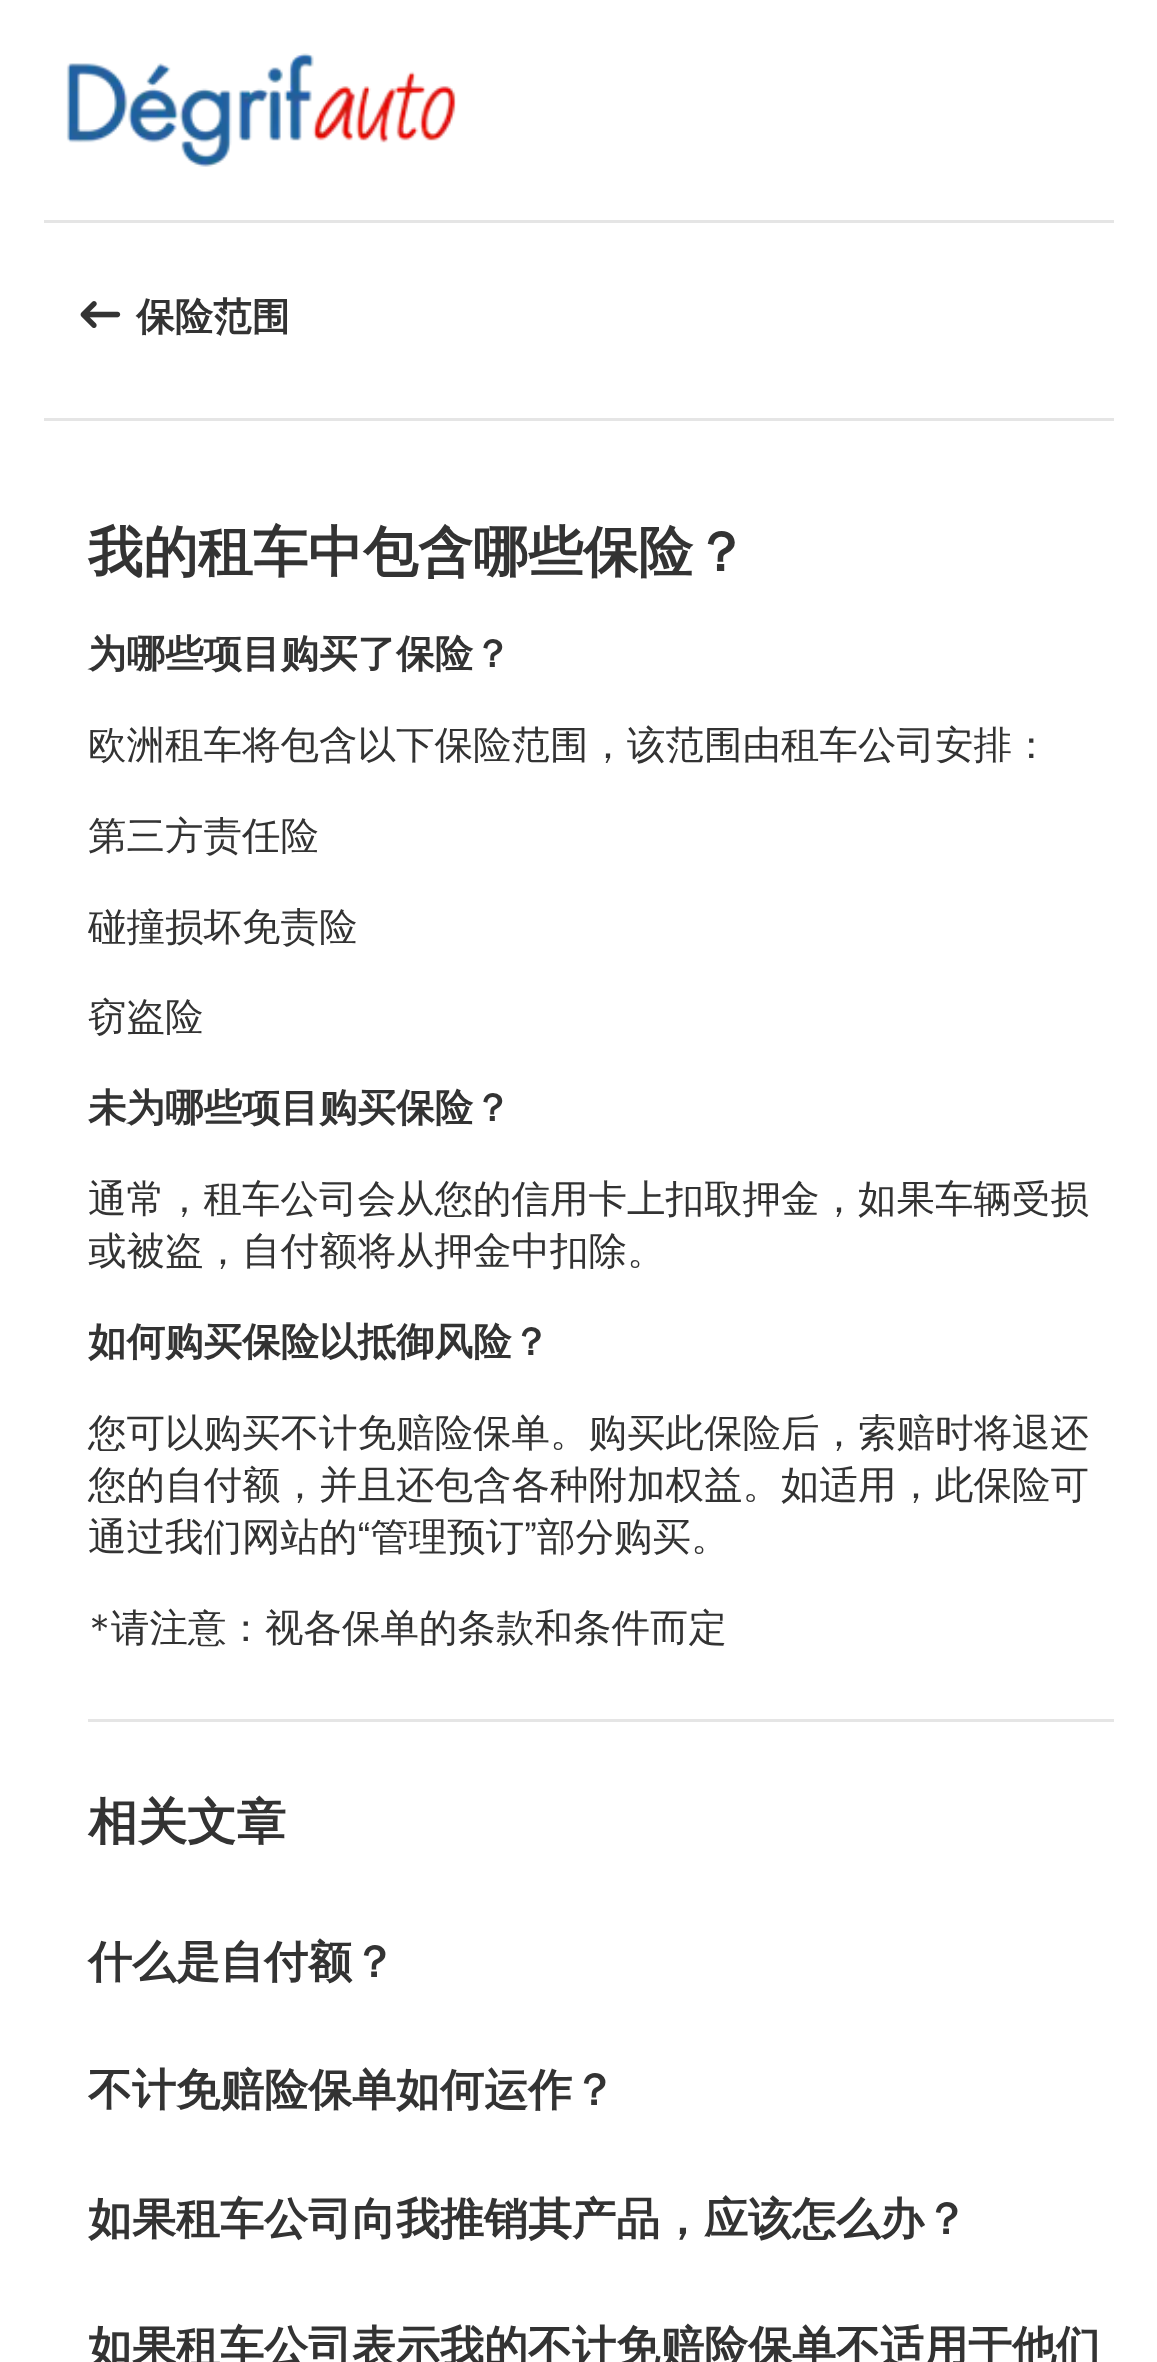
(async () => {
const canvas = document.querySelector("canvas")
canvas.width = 1157
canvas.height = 2362
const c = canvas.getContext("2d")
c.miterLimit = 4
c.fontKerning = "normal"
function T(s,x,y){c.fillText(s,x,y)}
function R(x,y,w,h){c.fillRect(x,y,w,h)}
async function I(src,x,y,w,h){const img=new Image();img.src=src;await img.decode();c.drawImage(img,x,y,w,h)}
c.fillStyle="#fff"
R(0,0,1157,2362)
await I("1.png",66,53,390,114)
c.fillStyle="#e5e5e5"
R(44,220,1070,3)
await I("2.png",80,301,41,27)
c.font="bold 38.5px WenQuanYi Zen Hei"
c.fillStyle="#333"
T("保险范围",136,330)
c.fillStyle="#e5e5e5"
R(44,418,1070,3)
c.font="bold 55px WenQuanYi Zen Hei"
c.fillStyle="#333"
T("我的租车中包含哪些保险？",88,571)
c.font="bold 38.5px WenQuanYi Zen Hei"
T("为哪些项目购买了保险？",88,667)
c.font="500 38.5px WenQuanYi Zen Hei"
T("欧洲租车将包含以下保险范围，该范围由租车公司安排：",88,758)
T("第三方责任险",88,849)
T("碰撞损坏免责险",88,940)
T("窃盗险",88,1030)
c.font="bold 38.5px WenQuanYi Zen Hei"
T("未为哪些项目购买保险？",88,1121)
c.font="500 38.5px WenQuanYi Zen Hei"
T("通常，租车公司会从您的信用卡上扣取押金，如果车辆受损",88,1212)
T("或被盗，自付额将从押金中扣除。",88,1264)
c.font="bold 38.5px WenQuanYi Zen Hei"
T("如何购买保险以抵御风险？",88,1355)
c.font="500 38.5px WenQuanYi Zen Hei"
T("您可以购买不计免赔险保单。购买此保险后，索赔时将退还",88,1446)
T("您的自付额，并且还包含各种附加权益。如适用，此保险可",88,1498)
T("通过我们网站的“管理预订”部分购买。",88,1550)
T("*请注意：视各保单的条款和条件而定",88,1641)
c.fillStyle="#e5e5e5"
R(88,1719,1026,3)
c.font="bold 49.5px WenQuanYi Zen Hei"
c.fillStyle="#333"
T("相关文章",88,1839)
c.font="bold 44px WenQuanYi Zen Hei"
T("什么是自付额？",88,1977)
T("不计免赔险保单如何运作？",88,2105)
T("如果租车公司向我推销其产品，应该怎么办？",88,2234)
T("如果租车公司表示我的不计免赔险保单不适用于他们",88,2362)
})()
